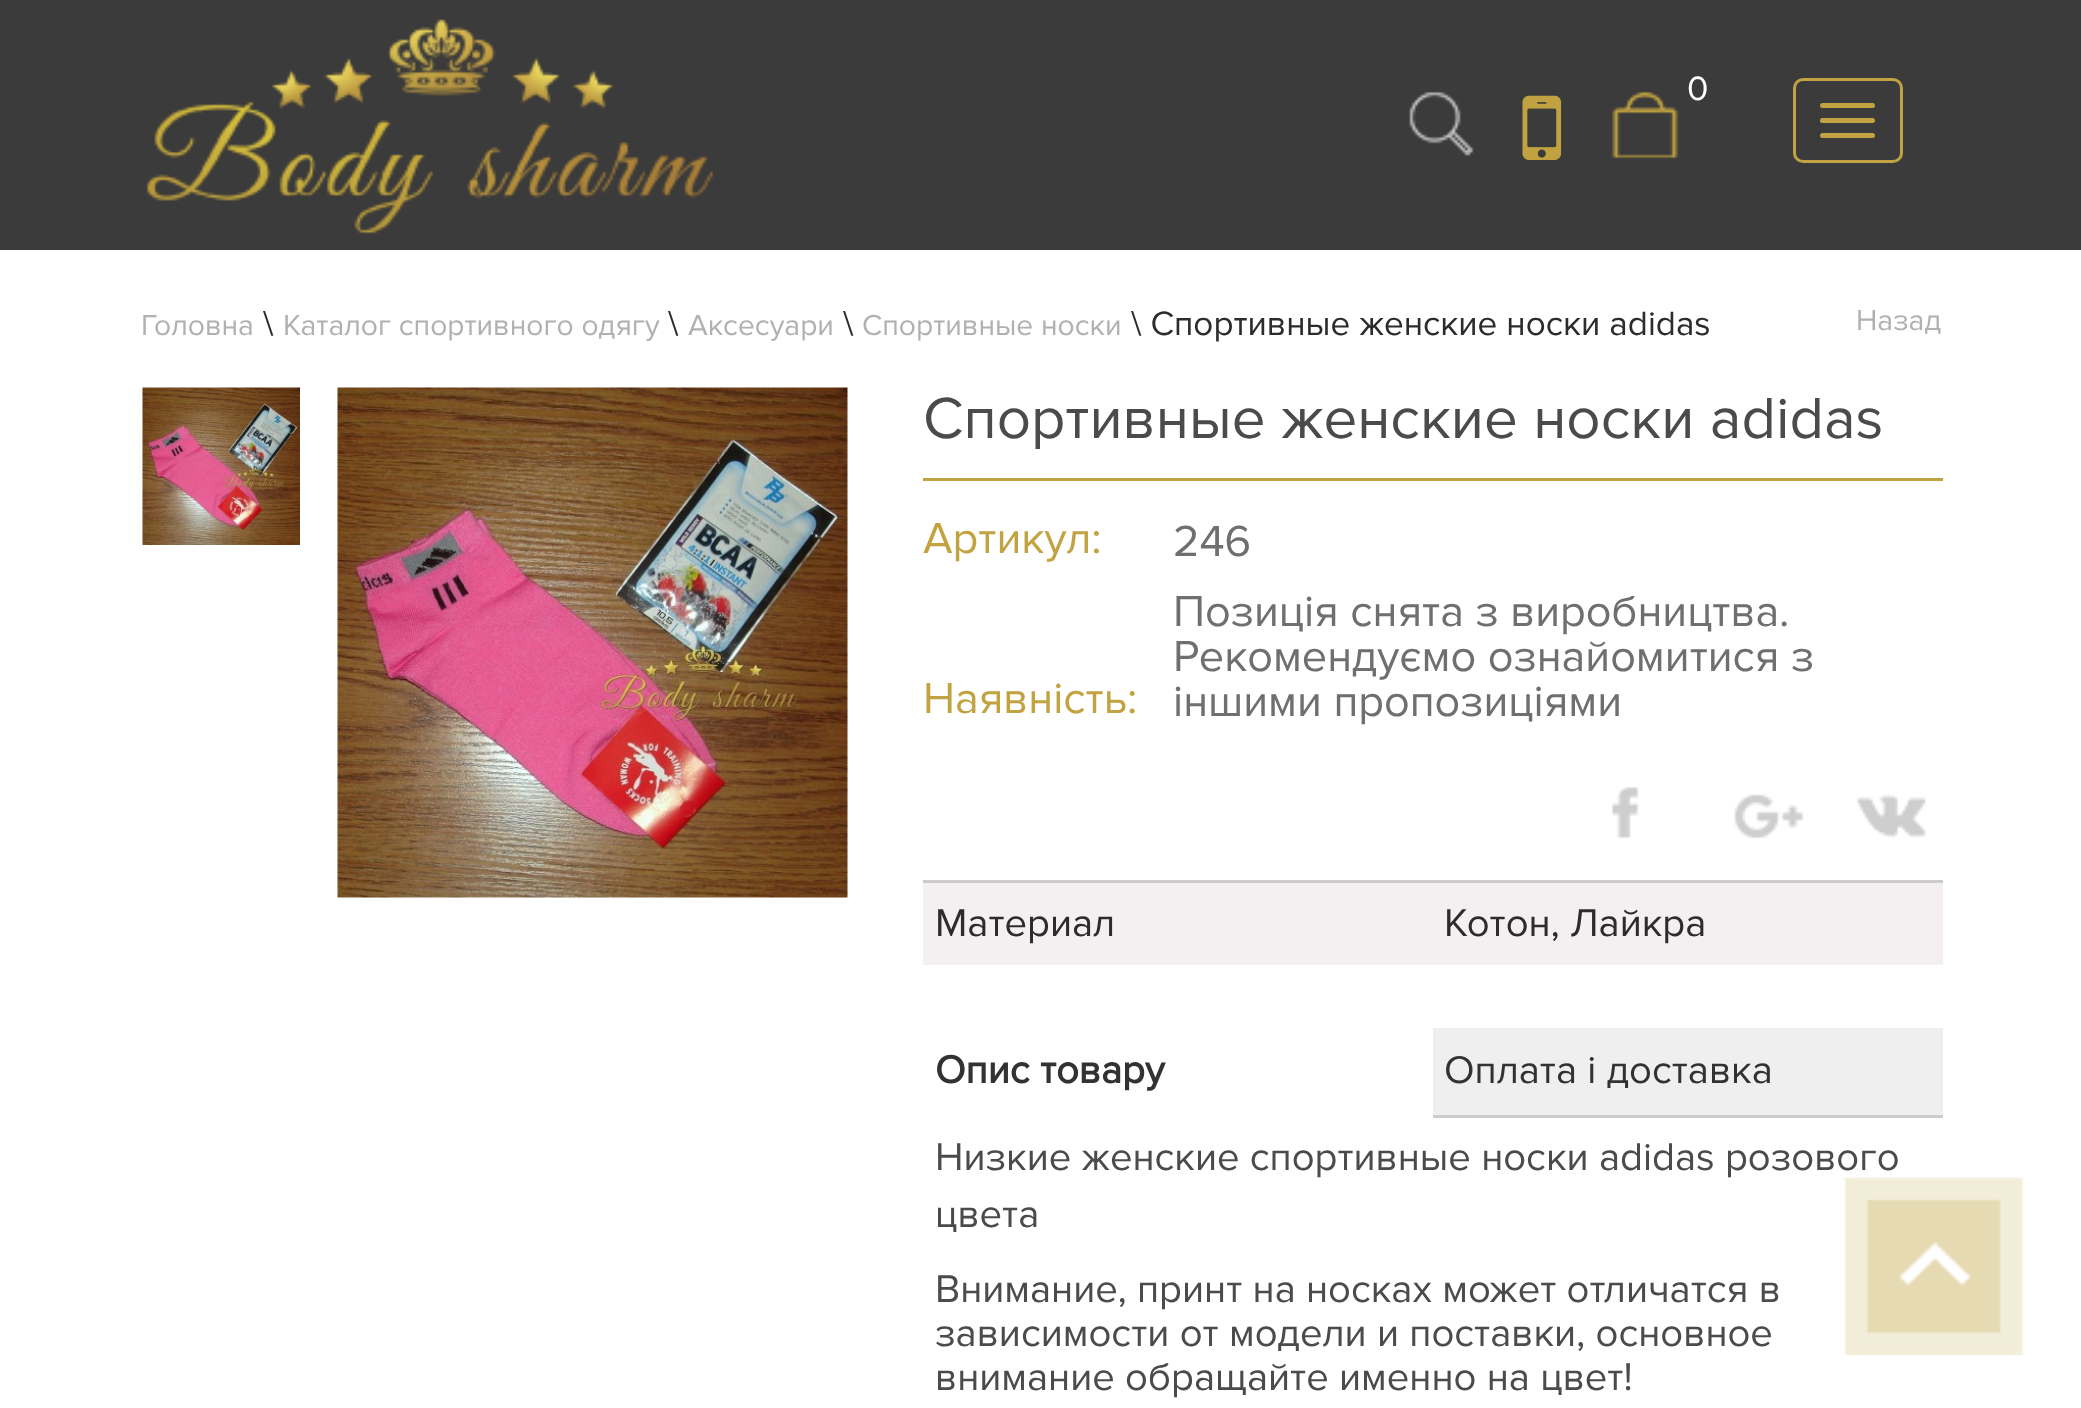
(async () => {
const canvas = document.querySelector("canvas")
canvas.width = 2081
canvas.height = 1408
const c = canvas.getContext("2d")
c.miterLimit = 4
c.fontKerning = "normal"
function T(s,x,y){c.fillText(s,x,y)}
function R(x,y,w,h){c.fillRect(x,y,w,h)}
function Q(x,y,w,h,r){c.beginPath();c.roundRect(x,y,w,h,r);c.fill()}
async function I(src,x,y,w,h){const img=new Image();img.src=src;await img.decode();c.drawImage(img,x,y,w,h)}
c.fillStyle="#fff"
R(0,0,2081,1408)
c.fillStyle="#3c3b3b"
R(0,0,2081,250)
await I("1.png",146,19,568,215)
await I("2.png",1611,91,68,68)
c.font="35px Proxima Nova"
c.fillStyle="#fff"
T("0",1687,100)
await I("3.png",1409,91,65,65)
await I("4.png",1522,95,40,65)
c.beginPath()
c.roundRect(1794.5,79.5,107,82,8.5)
c.strokeStyle="#c1a341"
c.lineWidth=3
c.stroke()
c.fillStyle="#c1a341"
Q(1820,103,55,5,2.5)
Q(1820,118,55,5,2.5)
Q(1820,133,55,5,2.5)
c.font="30px Proxima Nova"
c.fillStyle="#b1b1b1"
T("Головна",141,335)
c.font="35px Proxima Nova"
c.fillStyle="#2c2c2c"
T("\\",263,335)
c.font="30px Proxima Nova"
c.fillStyle="#b1b1b1"
T("Каталог спортивного одягу",283,335)
c.font="35px Proxima Nova"
c.fillStyle="#2c2c2c"
T("\\",668,335)
c.font="30px Proxima Nova"
c.fillStyle="#b1b1b1"
T("Аксесуари",688,335)
c.font="35px Proxima Nova"
c.fillStyle="#2c2c2c"
T("\\",843,335)
c.font="30px Proxima Nova"
c.fillStyle="#b1b1b1"
T("Спортивные носки",862,335)
c.font="35px Proxima Nova"
c.fillStyle="#2c2c2c"
T("\\ Спортивные женские носки adidas",1131,335)
c.font="30px Proxima Nova"
c.fillStyle="#b1b1b1"
T("Назад",1856,330)
await I("5.png",142,387,158,158)
await I("6.png",337,387,511,511)
c.fillStyle="#bda43f"
R(923,478,1020,3)
c.font="60px Proxima Nova"
c.fillStyle="#4b4b4b"
T("Спортивные женские носки adidas",923,438)
c.font="45px Proxima Nova"
c.fillStyle="#c1a341"
T("Артикул:",923,553)
c.fillStyle="#706e6e"
T("246",1173,556)
c.fillStyle="#c1a341"
T("Наявність:",923,713)
c.fillStyle="#706e6e"
T("Позиція снята з виробництва.",1173,626)
T("Рекомендуємо ознайомитися з",1173,671)
T("іншими пропозиціями",1173,716)
await I("7.png",1612,787,27,52)
await I("8.png",1734,794,70,45)
await I("9.png",1857,794,69,44)
c.fillStyle="#f4f0f1"
R(923,883,1020,82)
c.fillStyle="#ccc"
R(923,880,1020,3)
c.font="40px Proxima Nova"
c.fillStyle="#2c2c2c"
T("Материал",935,936)
T("Котон, Лайкра",1444,936)
c.font="bold 40px Proxima Nova"
c.fillStyle="#323232"
T("Опис товару",935,1083)
c.fillStyle="#efefef"
R(1433,1028,510,87)
c.fillStyle="#ccc"
R(1433,1115,510,3)
c.font="40px Proxima Nova"
c.fillStyle="#323232"
T("Оплата і доставка",1444,1083)
c.fillStyle="#4b4b4b"
T("Низкие женские спортивные носки adidas розового",935,1170)
T("цвета",935,1227)
T("Внимание, принт на носках может отличатся в",935,1302)
T("зависимости от модели и поставки, основное",935,1346)
T("внимание обращайте именно на цвет!",935,1390)
await I("10.png",1844,1177,180,179)
})()
